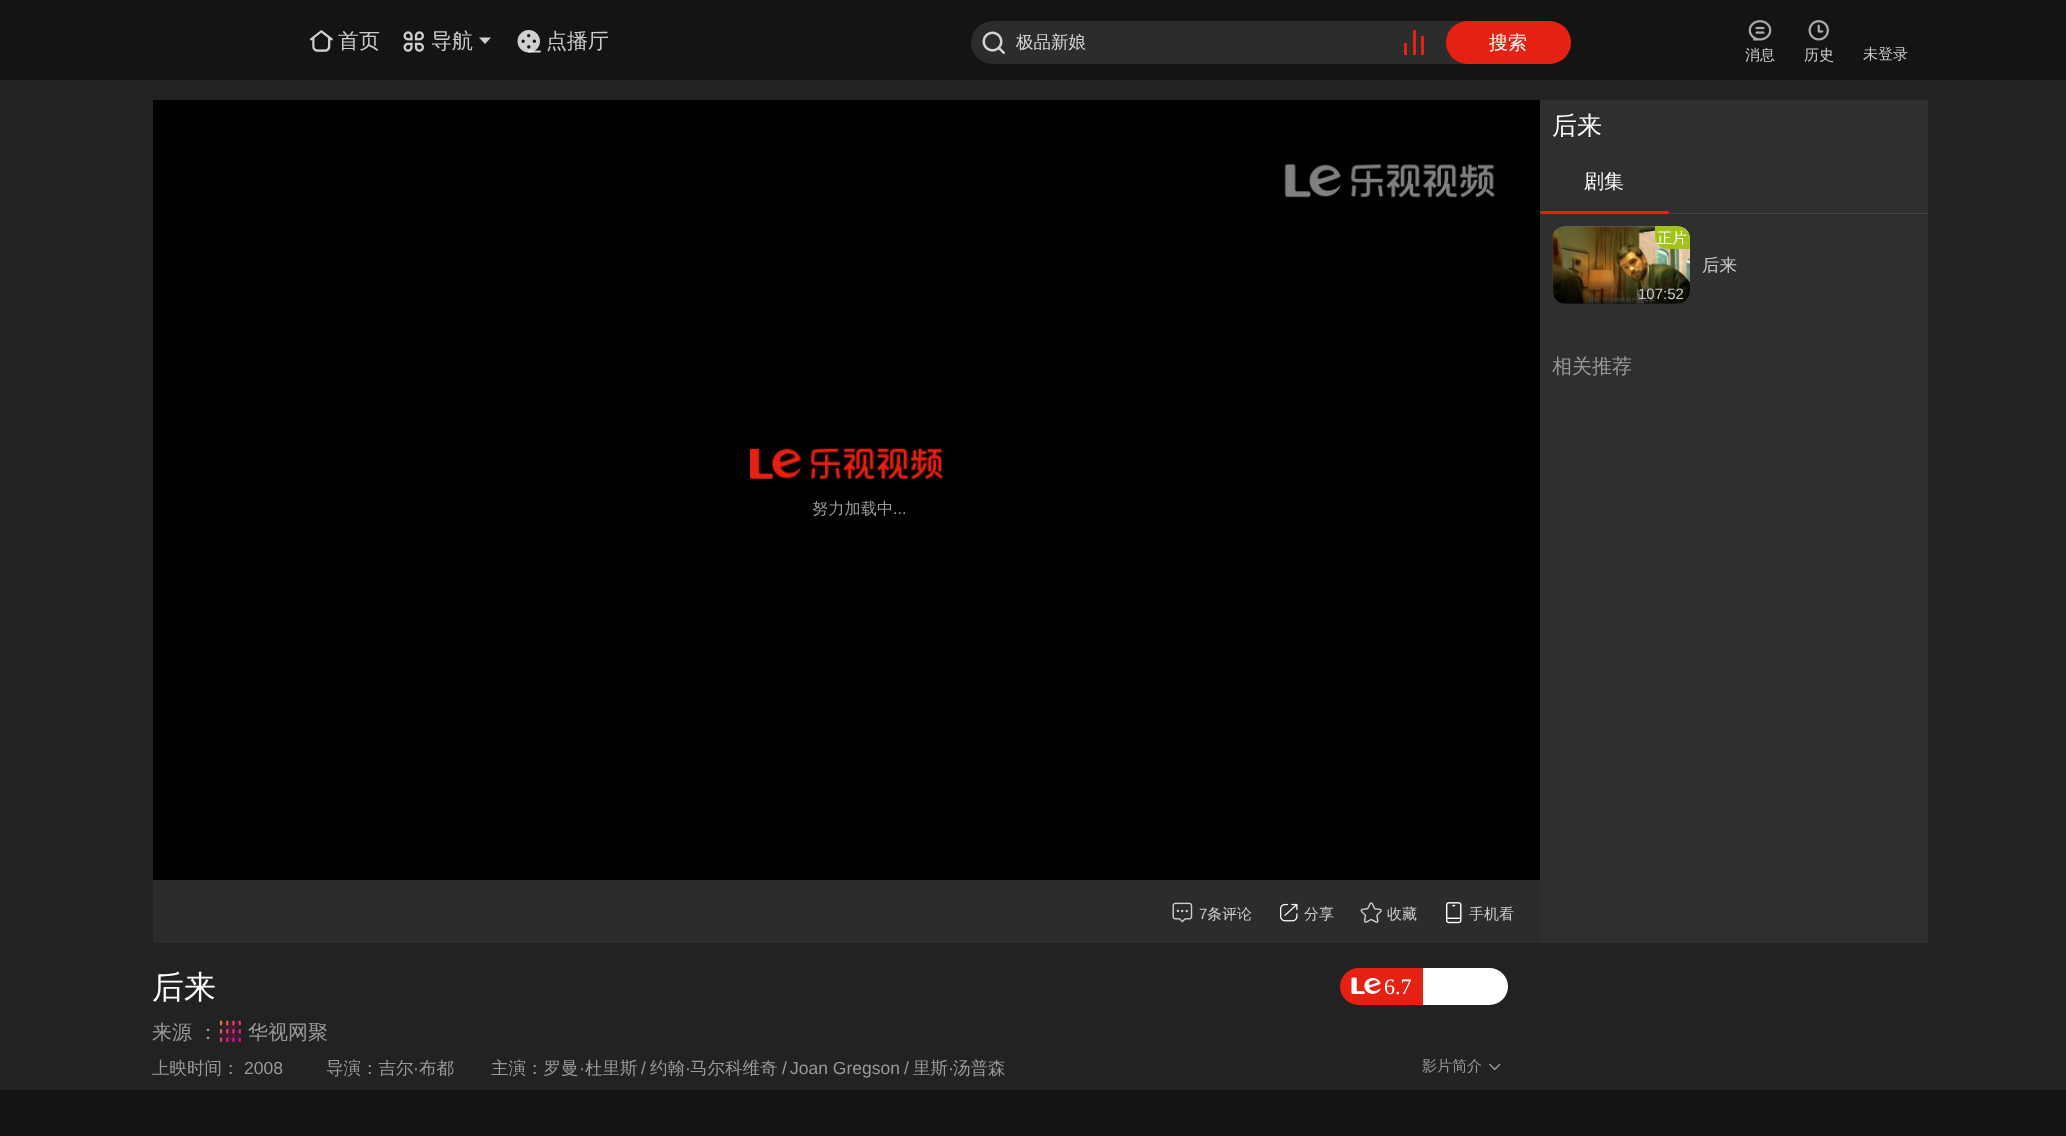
(async () => {
const canvas = document.querySelector("canvas")
canvas.width = 2066
canvas.height = 1136
const c = canvas.getContext("2d")
c.miterLimit = 4
c.fontKerning = "normal"
function T(s,x,y){c.fillText(s,x,y)}
function R(x,y,w,h){c.fillRect(x,y,w,h)}
function Q(x,y,w,h,r){c.beginPath();c.roundRect(x,y,w,h,r);c.fill()}
async function I(src,x,y,w,h){const img=new Image();img.src=src;await img.decode();c.drawImage(img,x,y,w,h)}
let gradient, path
c.fillStyle="#141414"
R(0,0,2066,1136)
await I("1.png",310,30,23,22)
c.font="500 21px WenQuanYi Zen Hei"
c.fillStyle="#ccc"
T("首页",338,48)
await I("2.png",403,31,21,21)
T("导航",431,48)
c.fillStyle="#d0d0d0"
path = new Path2D("M479 37.5h12l-6 6.5z")
c.fill(path)
await I("3.png",517,30,24,23)
c.fillStyle="#ccc"
T("点播厅",546,48)
c.fillStyle="#2c2c2c"
Q(971,21,600,43,21.5)
await I("4.png",982,31,23,23)
c.font="500 17.5px WenQuanYi Zen Hei"
c.fillStyle="#d5d5d5"
T("极品新娘",1016,48)
c.fillStyle="#e42112"
R(1404,43,3,12)
R(1413,30,3,25)
R(1421,36,3,19)
Q(1446,21,125,43,21.5)
c.font="500 19px WenQuanYi Zen Hei"
c.fillStyle="#fff"
T("搜索",1489,49)
await I("5.png",1748,20,24,21)
c.font="500 15px WenQuanYi Zen Hei"
c.fillStyle="#ccc"
T("消息",1745,60)
await I("6.png",1808,20,21,21)
T("历史",1804,60)
T("未登录",1863,59)
c.fillStyle="#222"
R(0,80,2066,1010)
c.fillStyle="#2f2f2f"
R(1540,100,388,843)
c.font="500 25px WenQuanYi Zen Hei"
c.fillStyle="#fff"
T("后来",1552,134)
c.fillStyle="#444"
R(1540,213,388,1)
c.font="500 20px WenQuanYi Zen Hei"
c.fillStyle="#fff"
T("剧集",1584,188)
c.fillStyle="#e42112"
Q(1540,211,129,3,1.5)
await I("7.png",1552,226,138,78)
await I("8.png",1552,226,138,78)
c.fillStyle="#a2c21d"
c.beginPath()
c.roundRect(1655,226,35,23,[0,13,0,13])
c.fill()
c.font="500 15px WenQuanYi Zen Hei"
c.fillStyle="#fff"
T("正片",1657,243)
gradient = c.createLinearGradient(1621,304,1621,270)
gradient.addColorStop(0,"#000000b3")
gradient.addColorStop(1,"#00000000")
c.fillStyle = gradient
c.beginPath()
c.roundRect(1553,270,137,34,[0,0,13,13])
c.fill()
c.font="15px Liberation Sans"
c.fillStyle="#ccc"
T("107:52",1638,299)
c.font="500 17.5px WenQuanYi Zen Hei"
T("后来",1702,271)
c.font="500 20px WenQuanYi Zen Hei"
c.fillStyle="#999"
T("相关推荐",1552,373)
c.fillStyle="#000"
R(153,100,1387,780)
await I("9.png",1284,163,211,35)
await I("10.png",750,448,193,32)
c.font="500 16.25px WenQuanYi Zen Hei"
c.fillStyle="#999"
T("努力加载中",812,514)
c.font="16.25px Liberation Sans"
T("...",893,514)
c.fillStyle="#2c2c2c"
R(153,880,1387,63)
await I("11.png",1172,902,21,21)
c.font="15px Liberation Sans"
c.fillStyle="#ccc"
T("7",1199,919)
c.font="500 15px WenQuanYi Zen Hei"
T("评论",1222,919)
T("条",1207,919)
await I("12.png",1280,903,18,19)
T("分享",1304,919)
await I("13.png",1360,902,22,21)
T("收藏",1387,919)
await I("14.png",1446,902,16,22)
T("手机看",1469,919)
c.font="500 32px WenQuanYi Zen Hei"
c.fillStyle="#fff"
T("后来",152,998)
c.font="500 20px WenQuanYi Zen Hei"
c.fillStyle="#999"
T("来源 ：",152,1039)
await I("15.png",219,1020,22,23)
T("华视网聚",248,1039)
c.font="500 17.5px WenQuanYi Zen Hei"
T("上映时间：",152,1074)
c.font="17.5px Liberation Sans"
T("2008",244,1074)
c.font="500 17.5px WenQuanYi Zen Hei"
T("导演：吉尔",326,1074)
c.font="17.5px Liberation Sans"
T("·",413,1074)
c.font="500 17.5px WenQuanYi Zen Hei"
T("布都",419,1074)
T("主演：罗曼",491,1074)
c.font="17.5px Liberation Sans"
T("·",579,1074)
c.font="500 17.5px WenQuanYi Zen Hei"
T("杜里斯",585,1074)
c.font="17.5px Liberation Sans"
T("/",641,1074)
c.font="500 17.5px WenQuanYi Zen Hei"
T("约翰",650,1074)
c.font="17.5px Liberation Sans"
T("·",685,1074)
c.font="500 17.5px WenQuanYi Zen Hei"
T("马尔科维奇",690,1074)
c.font="17.5px Liberation Sans"
T("/",782,1074)
T("Joan Gregson",790,1074)
T("/",904,1074)
c.font="500 17.5px WenQuanYi Zen Hei"
T("里斯",913,1074)
c.font="17.5px Liberation Sans"
T("·",948,1074)
c.font="500 17.5px WenQuanYi Zen Hei"
T("汤普森",953,1074)
c.fillStyle="#e42112"
c.beginPath()
c.roundRect(1340,968,83,37,[18.5,0,0,18.5])
c.fill()
await I("16.png",1351,977,30,17)
c.font="22px Liberation Serif"
c.fillStyle="#fff"
T("6.7",1384,994)
c.beginPath()
c.roundRect(1423,968,85,37,[0,18.5,18.5,0])
c.fill()
c.font="500 15px WenQuanYi Zen Hei"
c.fillStyle="#999"
T("影片简介",1422,1071)
await I("17.png",1489,1063,12,8)
})()
